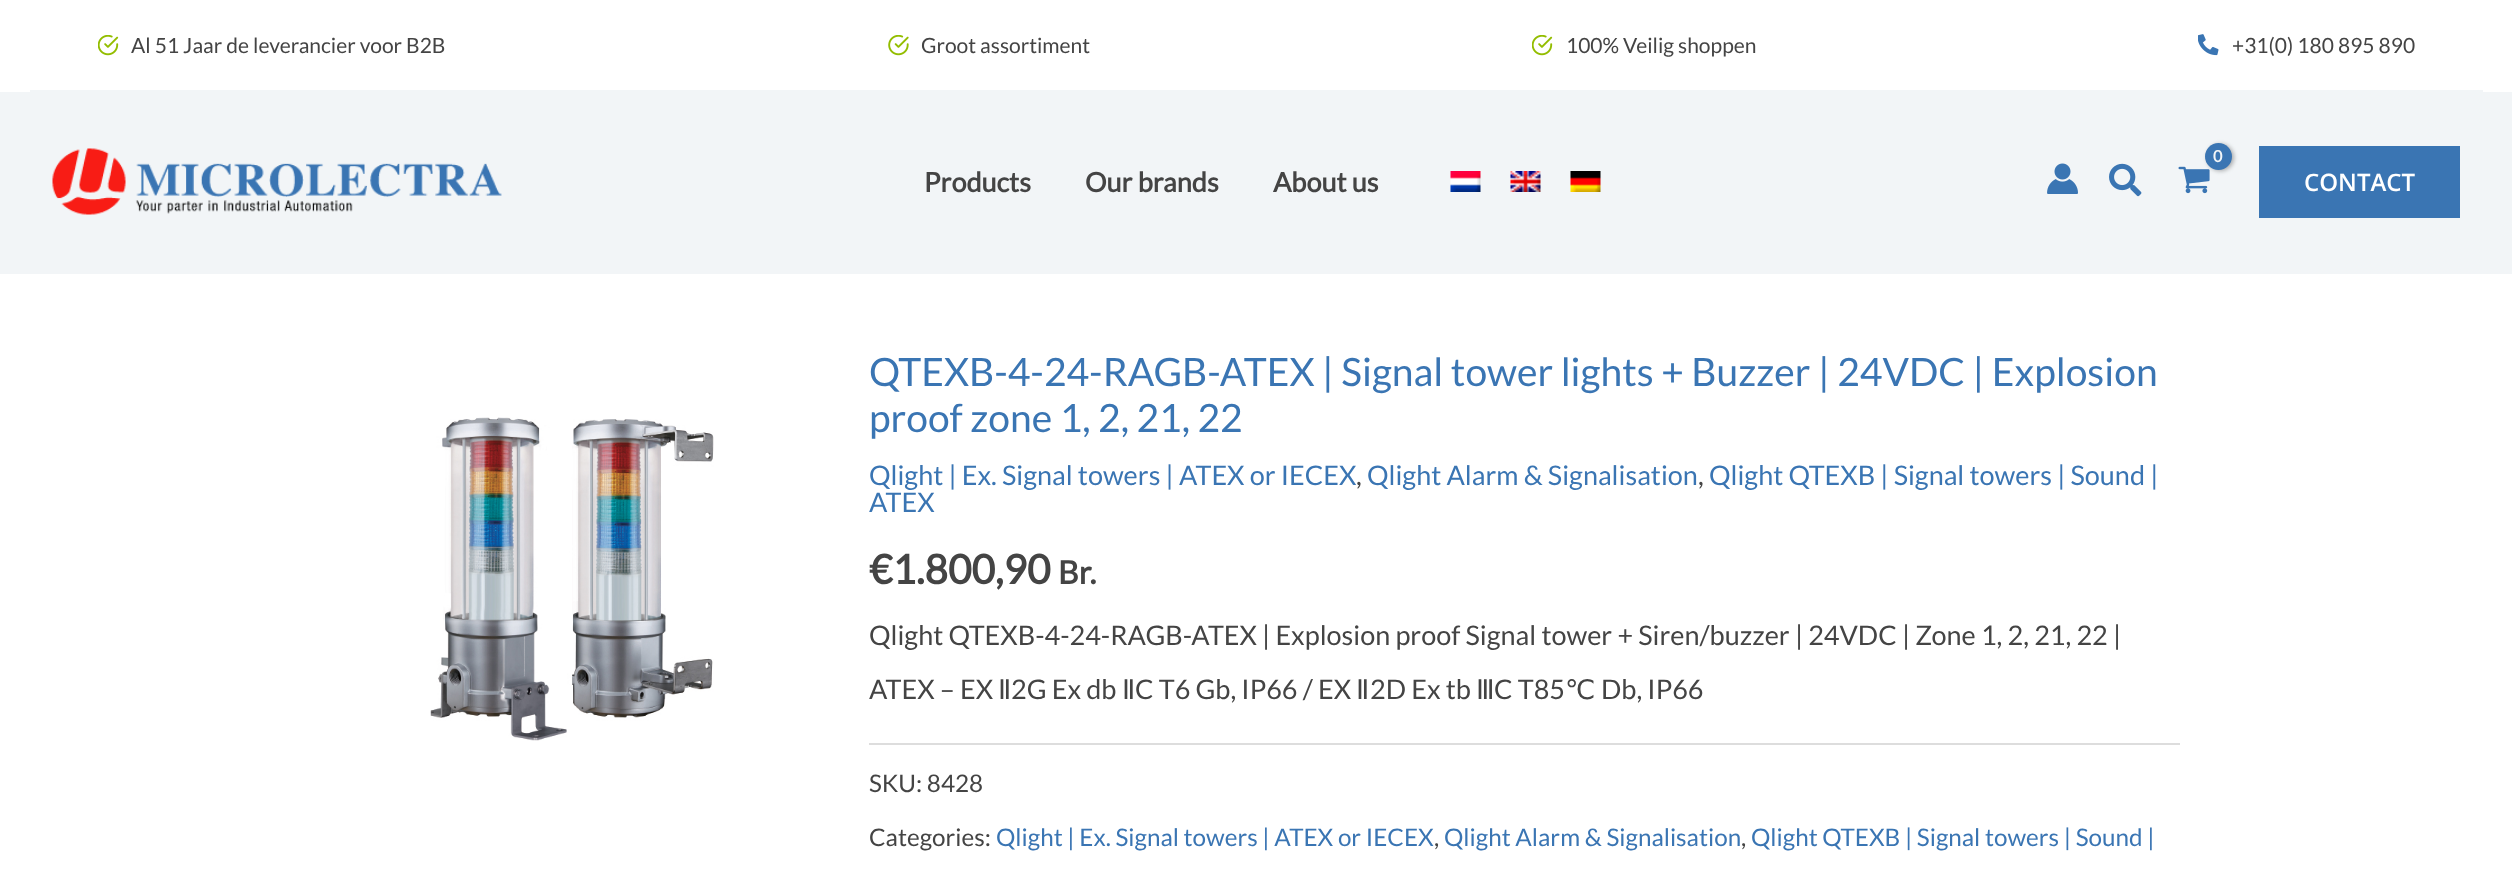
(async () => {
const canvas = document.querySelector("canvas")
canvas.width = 2512
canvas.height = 869
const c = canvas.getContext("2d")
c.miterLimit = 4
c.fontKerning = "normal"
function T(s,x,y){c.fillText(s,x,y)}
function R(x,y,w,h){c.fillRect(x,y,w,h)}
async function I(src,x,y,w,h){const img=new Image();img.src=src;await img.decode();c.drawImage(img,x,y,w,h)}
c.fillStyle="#fff"
R(0,0,2512,869)
c.fillStyle="#f2f5f7"
R(30,90,2453,2)
await I("1.png",98,35,21,21)
c.font="21px Lato"
c.fillStyle="#444"
T("Al 51 Jaar de leverancier voor B2B",131,53)
await I("2.png",888,35,21,21)
T("Groot assortiment",921,53)
await I("1.png",1532,35,21,21)
T("100% Veilig shoppen",1566,53)
await I("3.png",2198,34,21,22)
T("+31(0) 180 895 890",2232,53)
c.fillStyle="#f2f5f7"
R(0,92,2512,182)
await I("4.png",52,148,450,67)
c.font="bold 27px Lato"
c.fillStyle="#444"
T("Products",924,192)
T("Our brands",1085,192)
T("About us",1273,192)
await I("5.png",1450,171,31,21)
await I("6.png",1510,171,31,21)
await I("7.png",1570,171,31,21)
await I("8.png",2178,166,32,28)
c.fillStyle="#0000004d"
c.filter="blur(2px)"
c.beginPath()
c.roundRect(2207,144,27,27,13.5)
c.fill()
c.filter="none"
c.fillStyle="#3a75b3"
c.beginPath()
c.arc(2218.5,156.5,13.5,0,7)
c.fill()
c.letterSpacing="-1px"
c.font="bold 16px Lato"
c.fillStyle="#f2f5f7"
T("0",2213,162)
await I("9.png",2047,163,31,31)
await I("10.png",2109,163,33,34)
c.fillStyle="#3a75b3"
R(2259,146,201,72)
c.letterSpacing="0px"
c.font="600 24px Open Sans"
c.fillStyle="#fff"
T("CONTACT",2304,191)
await I("11.png",430,417,284,324)
c.font="39px Lato"
c.fillStyle="#3a75b3"
T("QTEXB-4-24-RAGB-ATEX | Signal tower lights + Buzzer | 24VDC | Explosion",869,386)
T("proof zone 1, 2, 21, 22",869,432)
c.font="27px Lato"
T("Qlight | Ex. Signal towers | ATEX or IECEX",869,485)
c.fillStyle="#444"
T(",",1356,485)
c.fillStyle="#3a75b3"
T("Qlight Alarm & Signalisation",1367,485)
c.fillStyle="#444"
T(",",1698,485)
c.fillStyle="#3a75b3"
T("Qlight QTEXB | Signal towers | Sound |",1709,485)
T("ATEX",869,512)
c.font="bold 40.5px Lato"
c.fillStyle="#444"
T("€1.800,90",869,584)
c.font="bold 32px Lato"
T("Br.",1058,584)
c.font="27px Lato"
T("Qlight QTEXB-4-24-RAGB-ATEX | Explosion proof Signal tower + Siren/buzzer | 24VDC | Zone 1, 2, 21, 22 |",869,645)
T("ATEX – EX",869,699)
c.font="27px DejaVu Sans"
T("Ⅱ",998,699)
c.font="27px Lato"
T("2G Ex db",1011,699)
c.font="27px DejaVu Sans"
T("Ⅱ",1122,699)
c.font="27px Lato"
T("C T6 Gb, IP66 / EX",1135,699)
c.font="27px DejaVu Sans"
T("Ⅱ",1356,699)
c.font="27px Lato"
T("2D Ex tb",1370,699)
c.font="27px DejaVu Sans"
T("Ⅲ",1476,699)
c.font="27px Lato"
T("C T85",1494,699)
c.font="27px DejaVu Sans"
T("℃",1565,699)
c.font="27px Lato"
T("Db, IP66",1601,699)
c.fillStyle="#ddd"
R(869,743,1311,2)
c.font="24.25px Lato"
c.fillStyle="#444"
T("SKU: 8428",869,792)
T("Categories:",869,846)
c.fillStyle="#3a75b3"
T("Qlight | Ex. Signal towers | ATEX or IECEX",996,846)
c.fillStyle="#444"
T(",",1434,846)
c.fillStyle="#3a75b3"
T("Qlight Alarm & Signalisation",1444,846)
c.fillStyle="#444"
T(",",1741,846)
c.fillStyle="#3a75b3"
T("Qlight QTEXB | Signal towers | Sound |",1751,846)
})()
